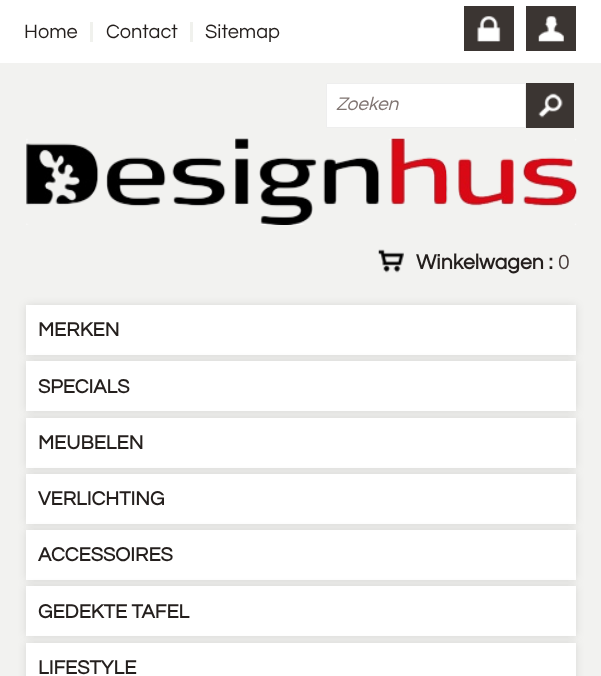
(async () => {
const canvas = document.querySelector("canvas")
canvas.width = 601
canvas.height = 676
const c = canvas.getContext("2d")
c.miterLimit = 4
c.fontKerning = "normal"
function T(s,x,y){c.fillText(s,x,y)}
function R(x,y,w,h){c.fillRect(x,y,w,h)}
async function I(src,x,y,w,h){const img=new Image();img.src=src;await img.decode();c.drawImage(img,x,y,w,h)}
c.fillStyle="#f2f2f0"
R(0,0,601,676)
c.fillStyle="#fff"
R(0,0,601,63)
c.font="20px Questrial"
c.fillStyle="#241f1d"
T("Home",24,38)
c.fillStyle="#f0f1ed"
R(90,22,3,20)
c.fillStyle="#241f1d"
T("Contact",106,38)
c.fillStyle="#f0f1ed"
R(190,22,3,20)
c.fillStyle="#241f1d"
T("Sitemap",205,38)
c.fillStyle="#fff"
c.beginPath()
c.rect(326.5,83.5,199,44)
c.fill()
c.strokeStyle="#eee"
c.stroke()
c.font="italic 19px Questrial"
c.fillStyle="#807572"
T("Zoeken",336,110)
c.fillStyle="#3b3532"
R(526,83,48,45)
await I("1.png",538,93,25,25)
await I("2.png",26,138,551,87)
R(464,6,50,45)
R(526,6,50,45)
await I("3.png",477,16,24,26)
await I("4.png",538,16,26,26)
await I("5.png",378,249,26,24)
c.font="bold 21.25px Questrial"
c.fillStyle="#241f1d"
T("Winkelwagen :",416,269)
c.font="21.25px Questrial"
c.fillStyle="#493d3b"
T("0",558,269)
c.fillStyle="#0000001a"
c.filter="blur(4.5px)"
c.beginPath()
c.rect(26,305,550,50)
c.fill()
c.filter="none"
c.fillStyle="#fff"
R(26,305,550,50)
c.font="bold 20px Questrial"
c.fillStyle="#241f1d"
T("MERKEN",38,336)
c.fillStyle="#0000001a"
c.filter="blur(4.5px)"
c.beginPath()
c.rect(26,361,550,50)
c.fill()
c.filter="none"
c.fillStyle="#fff"
R(26,361,550,50)
c.fillStyle="#241f1d"
T("SPECIALS",38,393)
c.fillStyle="#0000001a"
c.filter="blur(4.5px)"
c.beginPath()
c.rect(26,418,550,50)
c.fill()
c.filter="none"
c.fillStyle="#fff"
R(26,418,550,50)
c.fillStyle="#241f1d"
T("MEUBELEN",38,449)
c.fillStyle="#0000001a"
c.filter="blur(4.5px)"
c.beginPath()
c.rect(26,474,550,50)
c.fill()
c.filter="none"
c.fillStyle="#fff"
R(26,474,550,50)
c.fillStyle="#241f1d"
T("VERLICHTING",38,505)
c.fillStyle="#0000001a"
c.filter="blur(4.5px)"
c.beginPath()
c.rect(26,530,550,50)
c.fill()
c.filter="none"
c.fillStyle="#fff"
R(26,530,550,50)
c.fillStyle="#241f1d"
T("ACCESSOIRES",38,561)
c.fillStyle="#0000001a"
c.filter="blur(4.5px)"
c.beginPath()
c.rect(26,586,550,50)
c.fill()
c.filter="none"
c.fillStyle="#fff"
R(26,586,550,50)
c.fillStyle="#241f1d"
T("GEDEKTE TAFEL",38,618)
c.fillStyle="#0000001a"
c.filter="blur(4.5px)"
c.beginPath()
c.rect(26,643,550,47)
c.fill()
c.filter="none"
c.fillStyle="#fff"
R(26,643,550,33)
c.fillStyle="#241f1d"
T("LIFESTYLE",38,674)
})()
